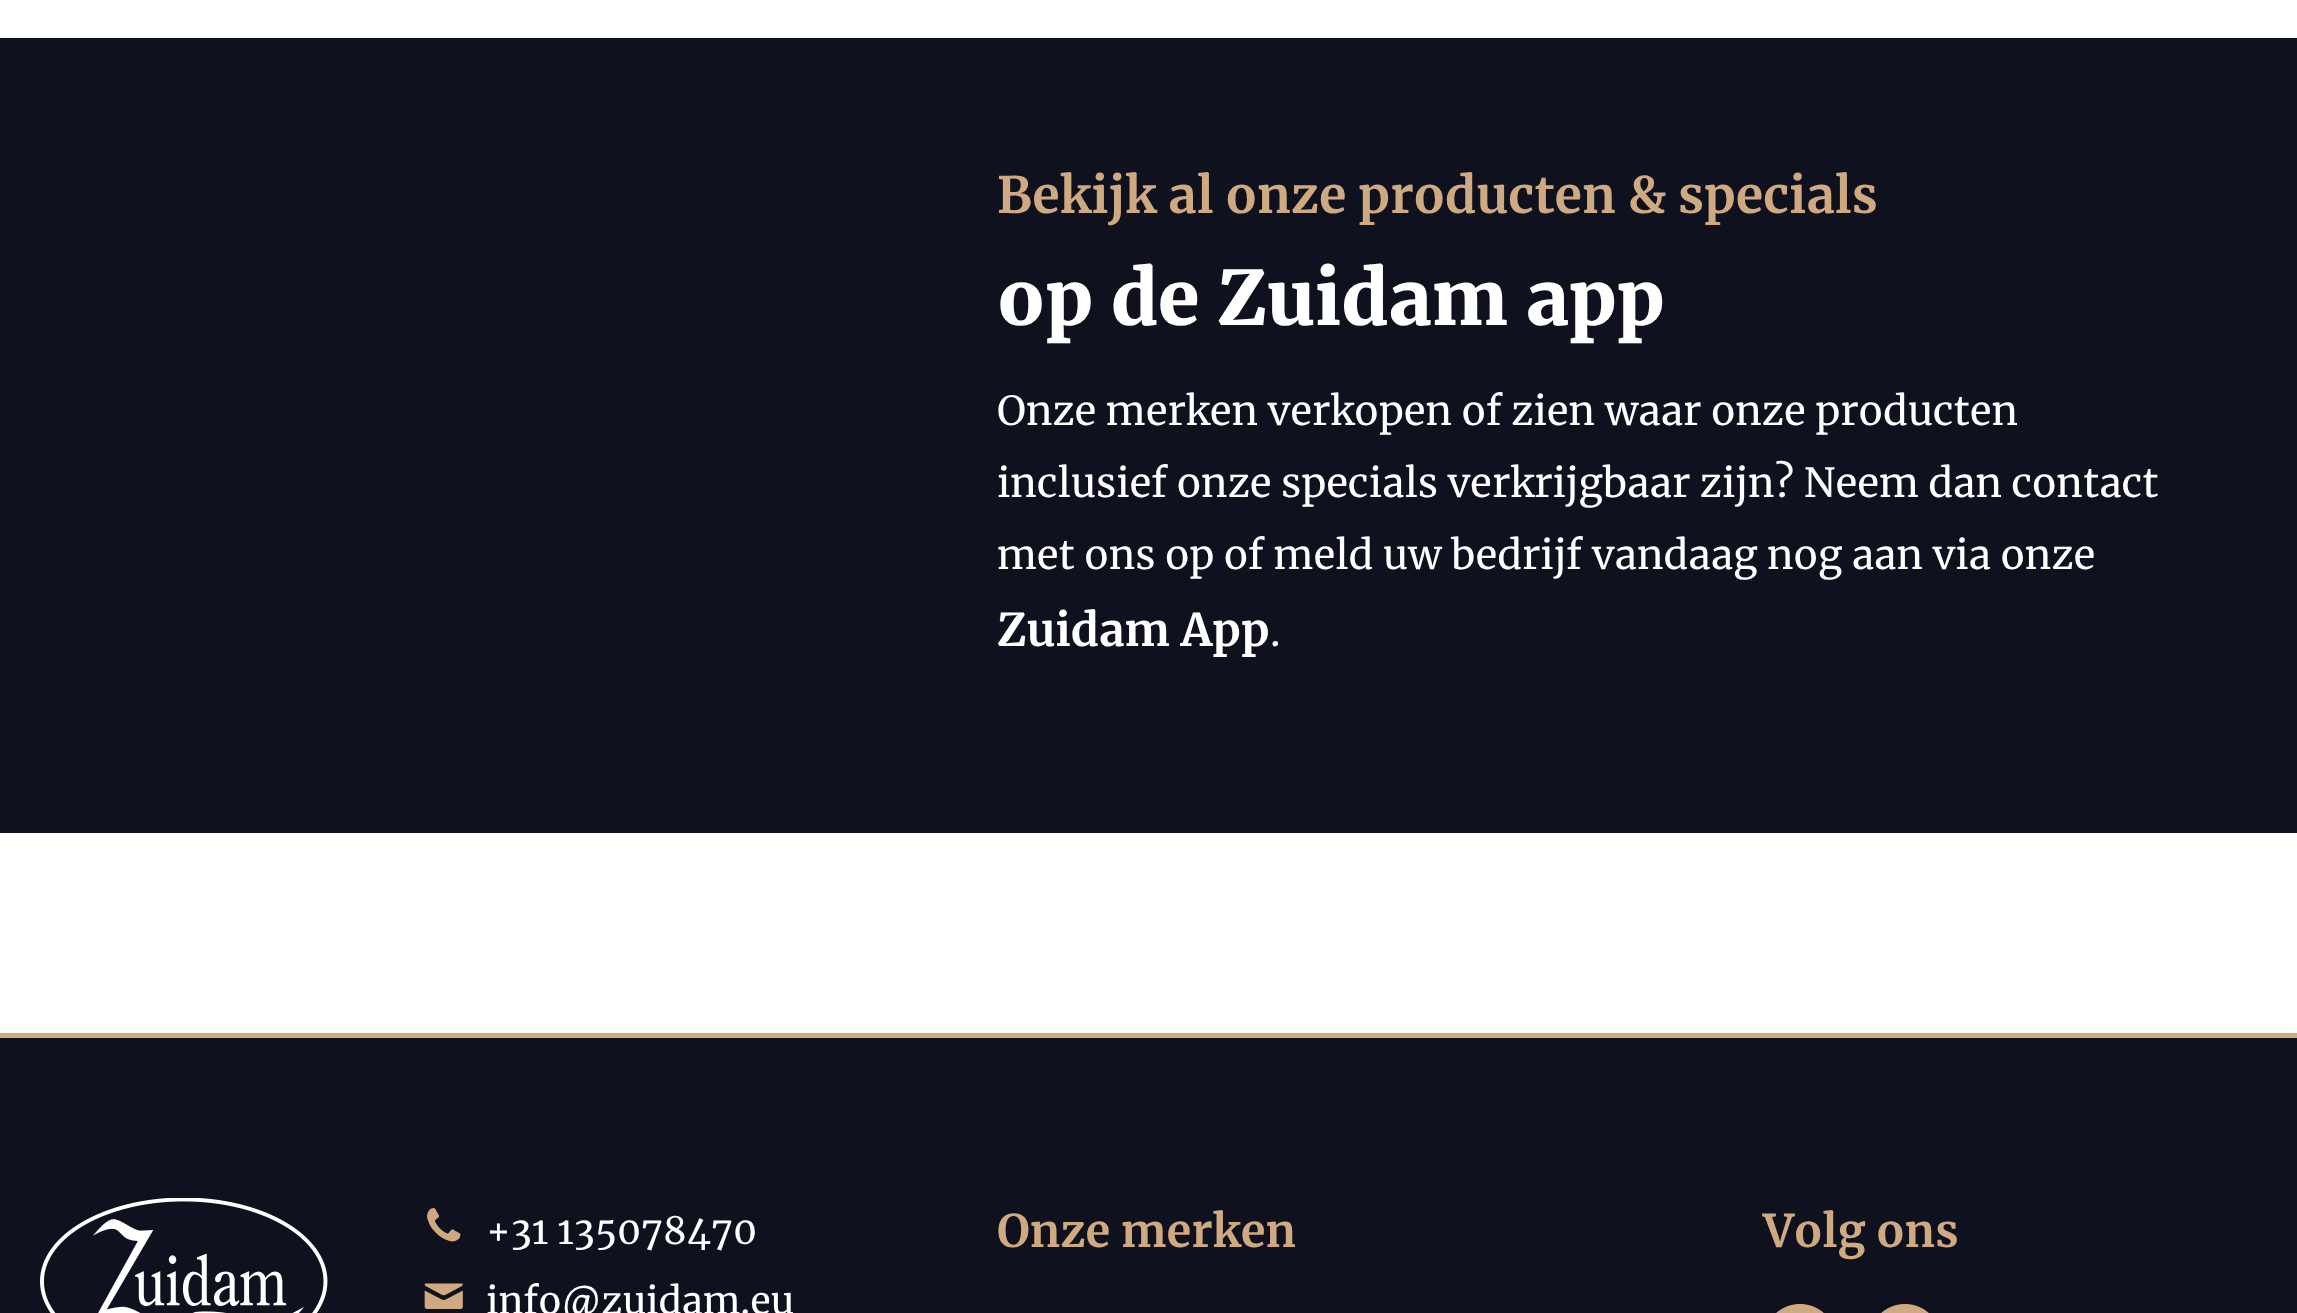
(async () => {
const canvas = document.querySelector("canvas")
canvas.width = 2297
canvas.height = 1313
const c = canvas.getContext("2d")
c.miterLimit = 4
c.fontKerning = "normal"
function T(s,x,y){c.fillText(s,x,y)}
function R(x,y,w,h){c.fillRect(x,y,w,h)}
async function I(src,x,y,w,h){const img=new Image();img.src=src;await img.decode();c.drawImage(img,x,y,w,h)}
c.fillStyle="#fff"
R(0,0,2297,1313)
c.fillStyle="#0f111e"
R(0,38,2297,795)
c.font="bold 50px Merriweather"
c.fillStyle="#cfa981"
T("Bekijk al onze producten & specials",997,213)
c.font="900 75px Merriweather"
c.fillStyle="#fff"
T("op de Zuidam app",997,325)
c.font="40px Merriweather"
T("Onze merken verkopen of zien waar onze producten",997,425)
T("inclusief onze specials verkrijgbaar zijn? Neem dan contact",997,497)
T("met ons op of meld uw bedrijf vandaag nog aan via onze",997,569)
c.font="bold 45px Merriweather"
T("Zuidam App",997,646)
c.font="40px Merriweather"
T(".",1270,646)
c.fillStyle="#0f111e"
R(0,1038,2297,275)
c.fillStyle="#cfa981"
R(0,1033,2297,5)
await I("1.png",40,1198,288,115)
await I("2.png",427,1208,34,34)
c.font="37.5px Merriweather"
c.fillStyle="#fff"
T("+31 135078470",486,1244)
await I("3.png",424,1283,39,26)
T("info@zuidam.eu",486,1314)
c.font="bold 45px Merriweather"
c.fillStyle="#cfa981"
T("Onze merken",997,1247)
T("Volg ons",1763,1247)
await I("4.png",1776,1304,48,9)
await I("4.png",1881,1304,48,9)
})()
